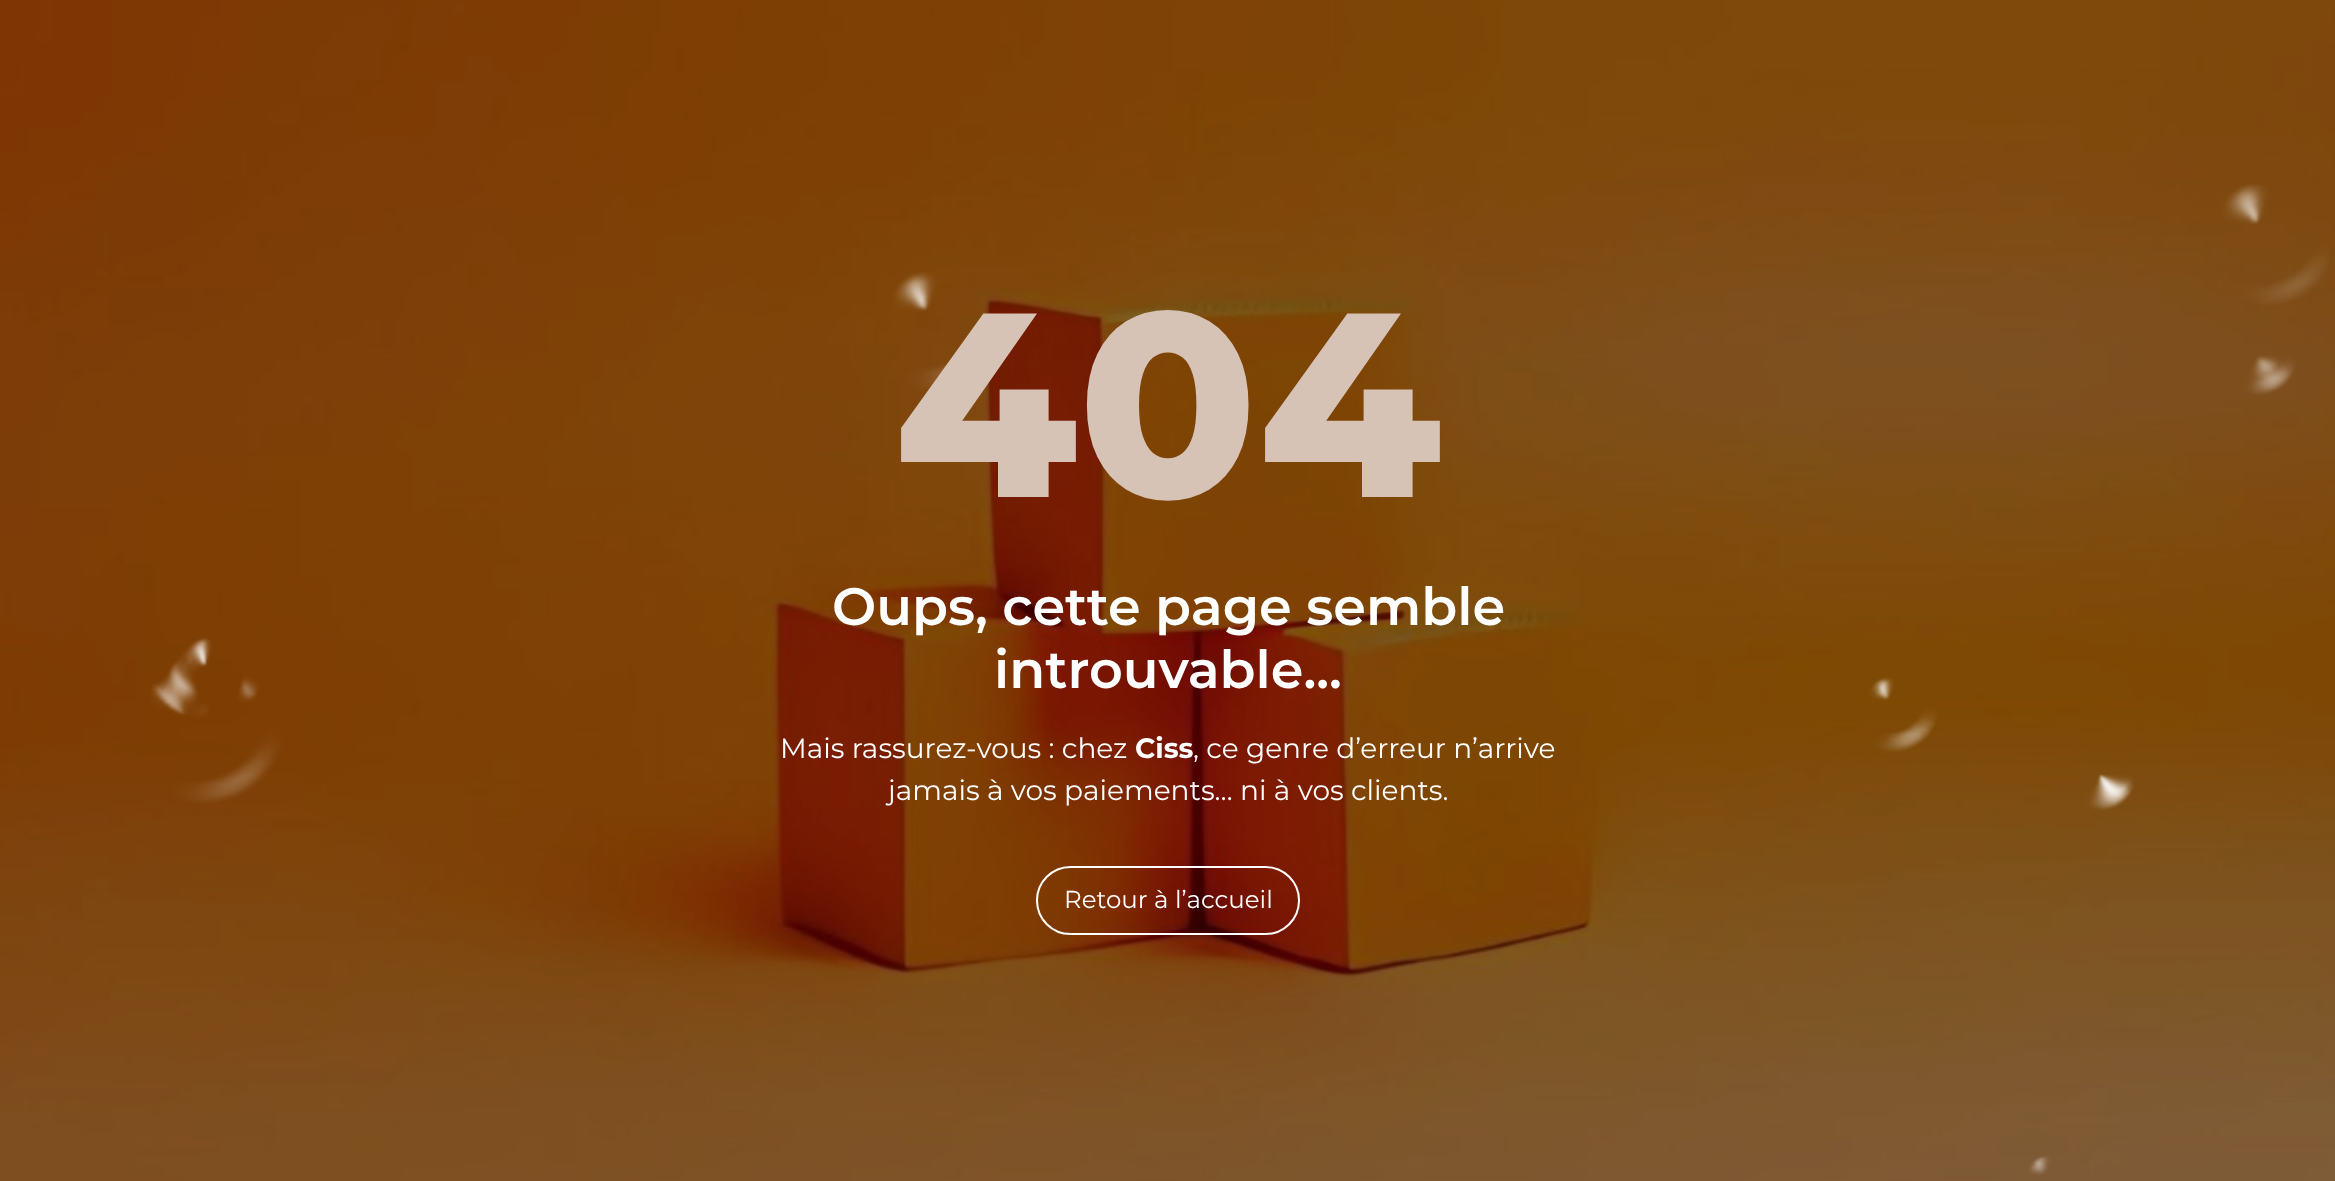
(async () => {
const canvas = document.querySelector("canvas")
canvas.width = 2335
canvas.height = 1181
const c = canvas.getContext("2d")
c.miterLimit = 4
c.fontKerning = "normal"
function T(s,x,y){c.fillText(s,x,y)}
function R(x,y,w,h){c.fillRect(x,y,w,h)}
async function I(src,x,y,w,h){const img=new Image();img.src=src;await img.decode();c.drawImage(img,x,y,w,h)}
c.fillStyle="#fff"
R(0,0,2335,1181)
await I("1.png",0,0,2335,1181)
await I("2.png",151,184,2178,991)
c.font="800 262px Montserrat"
c.fillStyle="#d7c2b6"
T("4",894,497)
T("0",1078,497)
T("4",1258,497)
c.font="600 52.5px Montserrat"
c.fillStyle="#fff"
T("Oups, cette page semble",832,625)
T("introuvable...",994,688)
c.font="28px Montserrat"
T("Mais rassurez-vous : chez",780,758)
c.font="bold 28px Montserrat"
T("Ciss",1135,758)
c.font="28px Montserrat"
T(", ce genre d’erreur n’arrive",1193,758)
T("jamais à vos paiements… ni à vos clients.",888,800)
c.beginPath()
c.roundRect(1037,867,262,67,33.5)
c.strokeStyle="#fff"
c.lineWidth=2
c.stroke()
c.font="24.5px Montserrat"
T("Retour à l’accueil",1064,908)
})()
